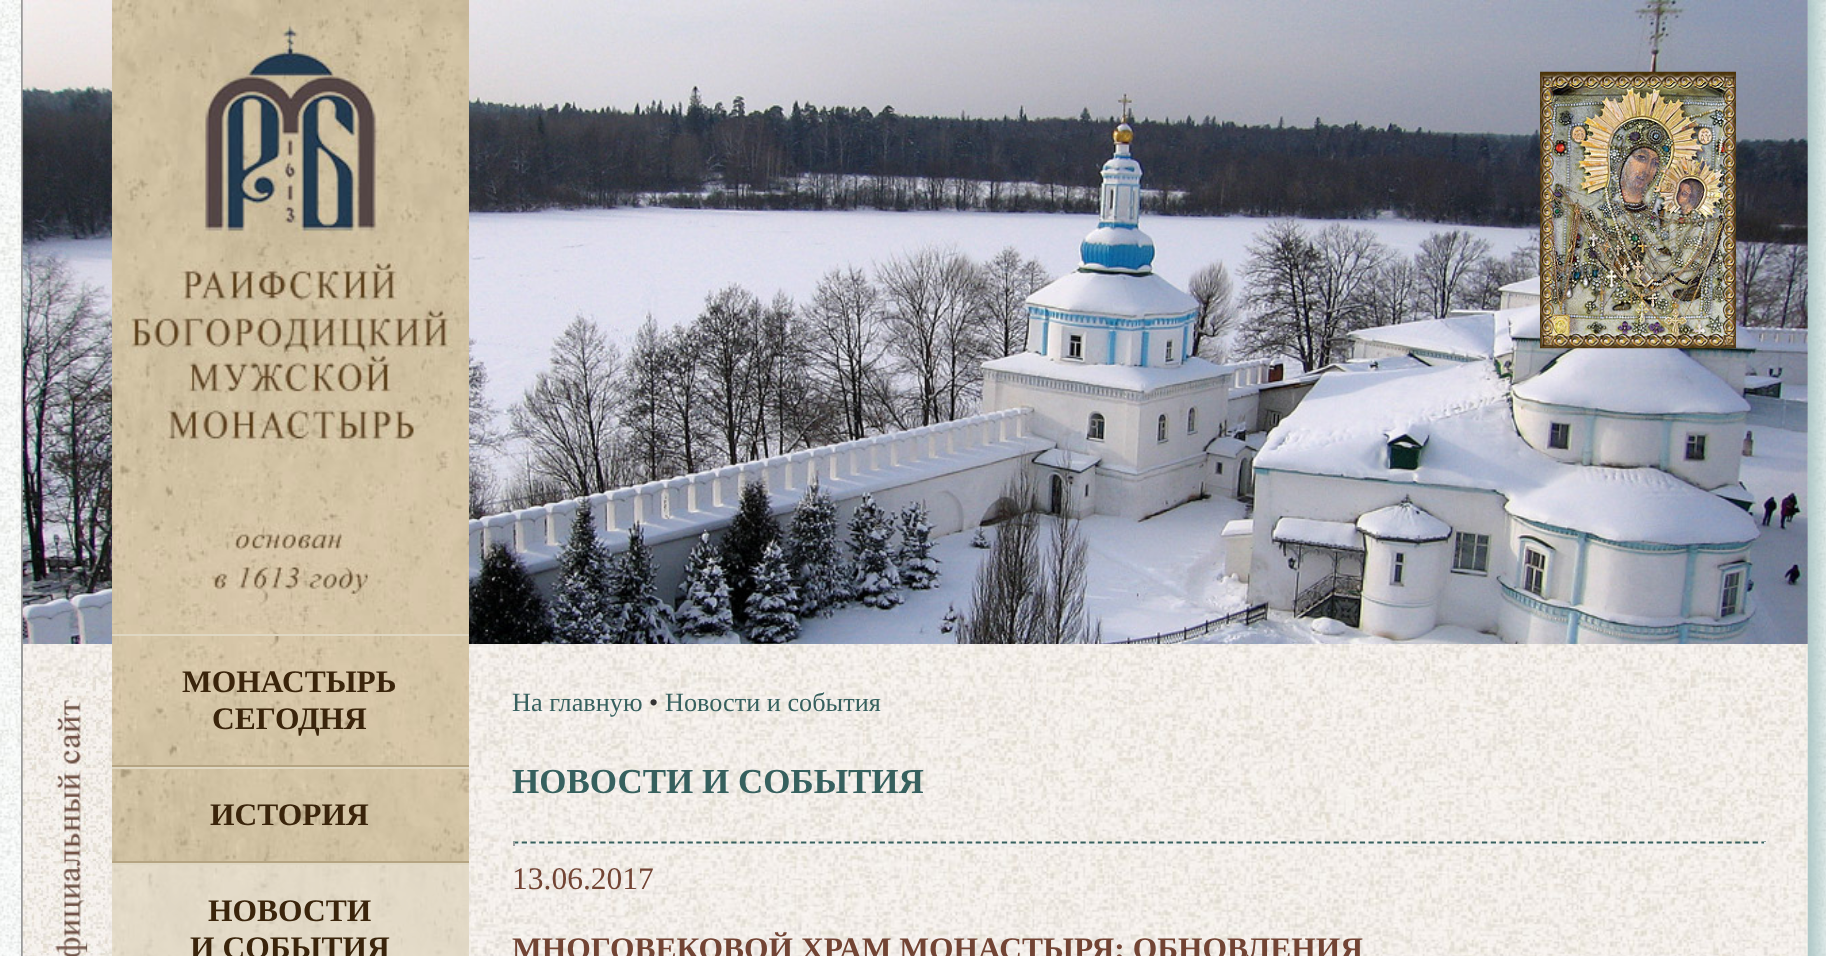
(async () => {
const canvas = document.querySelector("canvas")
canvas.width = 1826
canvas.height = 956
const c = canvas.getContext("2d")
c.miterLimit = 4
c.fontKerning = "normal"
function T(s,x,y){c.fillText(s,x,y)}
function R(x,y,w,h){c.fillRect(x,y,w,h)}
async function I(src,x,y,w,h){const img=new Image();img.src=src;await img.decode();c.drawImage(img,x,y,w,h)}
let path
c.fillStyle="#fff"
R(0,0,1826,956)
await I("1.png",0,0,1826,956)
await I("2.png",23,0,1785,956)
c.fillStyle="#999"
R(21,0,2,956)
await I("5.png",1807,0,19,956)
await I("3.png",22,0,1786,644)
await I("4.png",1540,71,196,278)
await I("6.png",112,624,357,332)
await I("7.png",112,0,357,625)
c.fillStyle="#dfd7c2"
R(112,634,357,2)
c.fillStyle="#b5a482"
R(112,765,357,2)
c.font="bold 31.5px Liberation Serif"
c.fillStyle="#3a240b"
T("МОНАСТЫРЬ",182,692)
T("СЕГОДНЯ",212,729)
c.fillStyle="#dfd7c2"
R(112,767,357,2)
c.fillStyle="#b5a482"
R(112,861,357,2)
c.fillStyle="#3a240b"
T("ИСТОРИЯ",210,825)
c.fillStyle="#ffffff66"
R(112,865,357,91)
c.fillStyle="#dfd7c2"
R(112,863,357,2)
c.fillStyle="#3a240b"
T("НОВОСТИ",208,921)
T("И СОБЫТИЯ",190,958)
await I("8.png",22,677,87,279)
c.font="26.25px Liberation Serif"
c.fillStyle="#36605e"
T("На главную",512,711)
c.fillStyle="#333"
T("•",649,711)
c.fillStyle="#36605e"
T("Новости и события",665,711)
c.font="bold 35px Liberation Serif"
T("НОВОСТИ И СОБЫТИЯ",512,793)
path = new Path2D("M513 842.5h1253")
c.strokeStyle="#36605e"
c.lineWidth=1.8
c.setLineDash([5.25,3.48])
c.stroke(path)
c.fillStyle="#eee"
R(1764,842,2,4)
R(513,844,1253,2)
c.fillStyle="#9f9f9f"
R(513,842,2,4)
c.font="31.5px Liberation Serif"
c.fillStyle="#724434"
T("13.06.2017",512,889)
c.font="bold 31.5px Liberation Serif"
T("МНОГОВЕКОВОЙ ХРАМ МОНАСТЫРЯ: ОБНОВЛЕНИЯ",512,959)
})()
